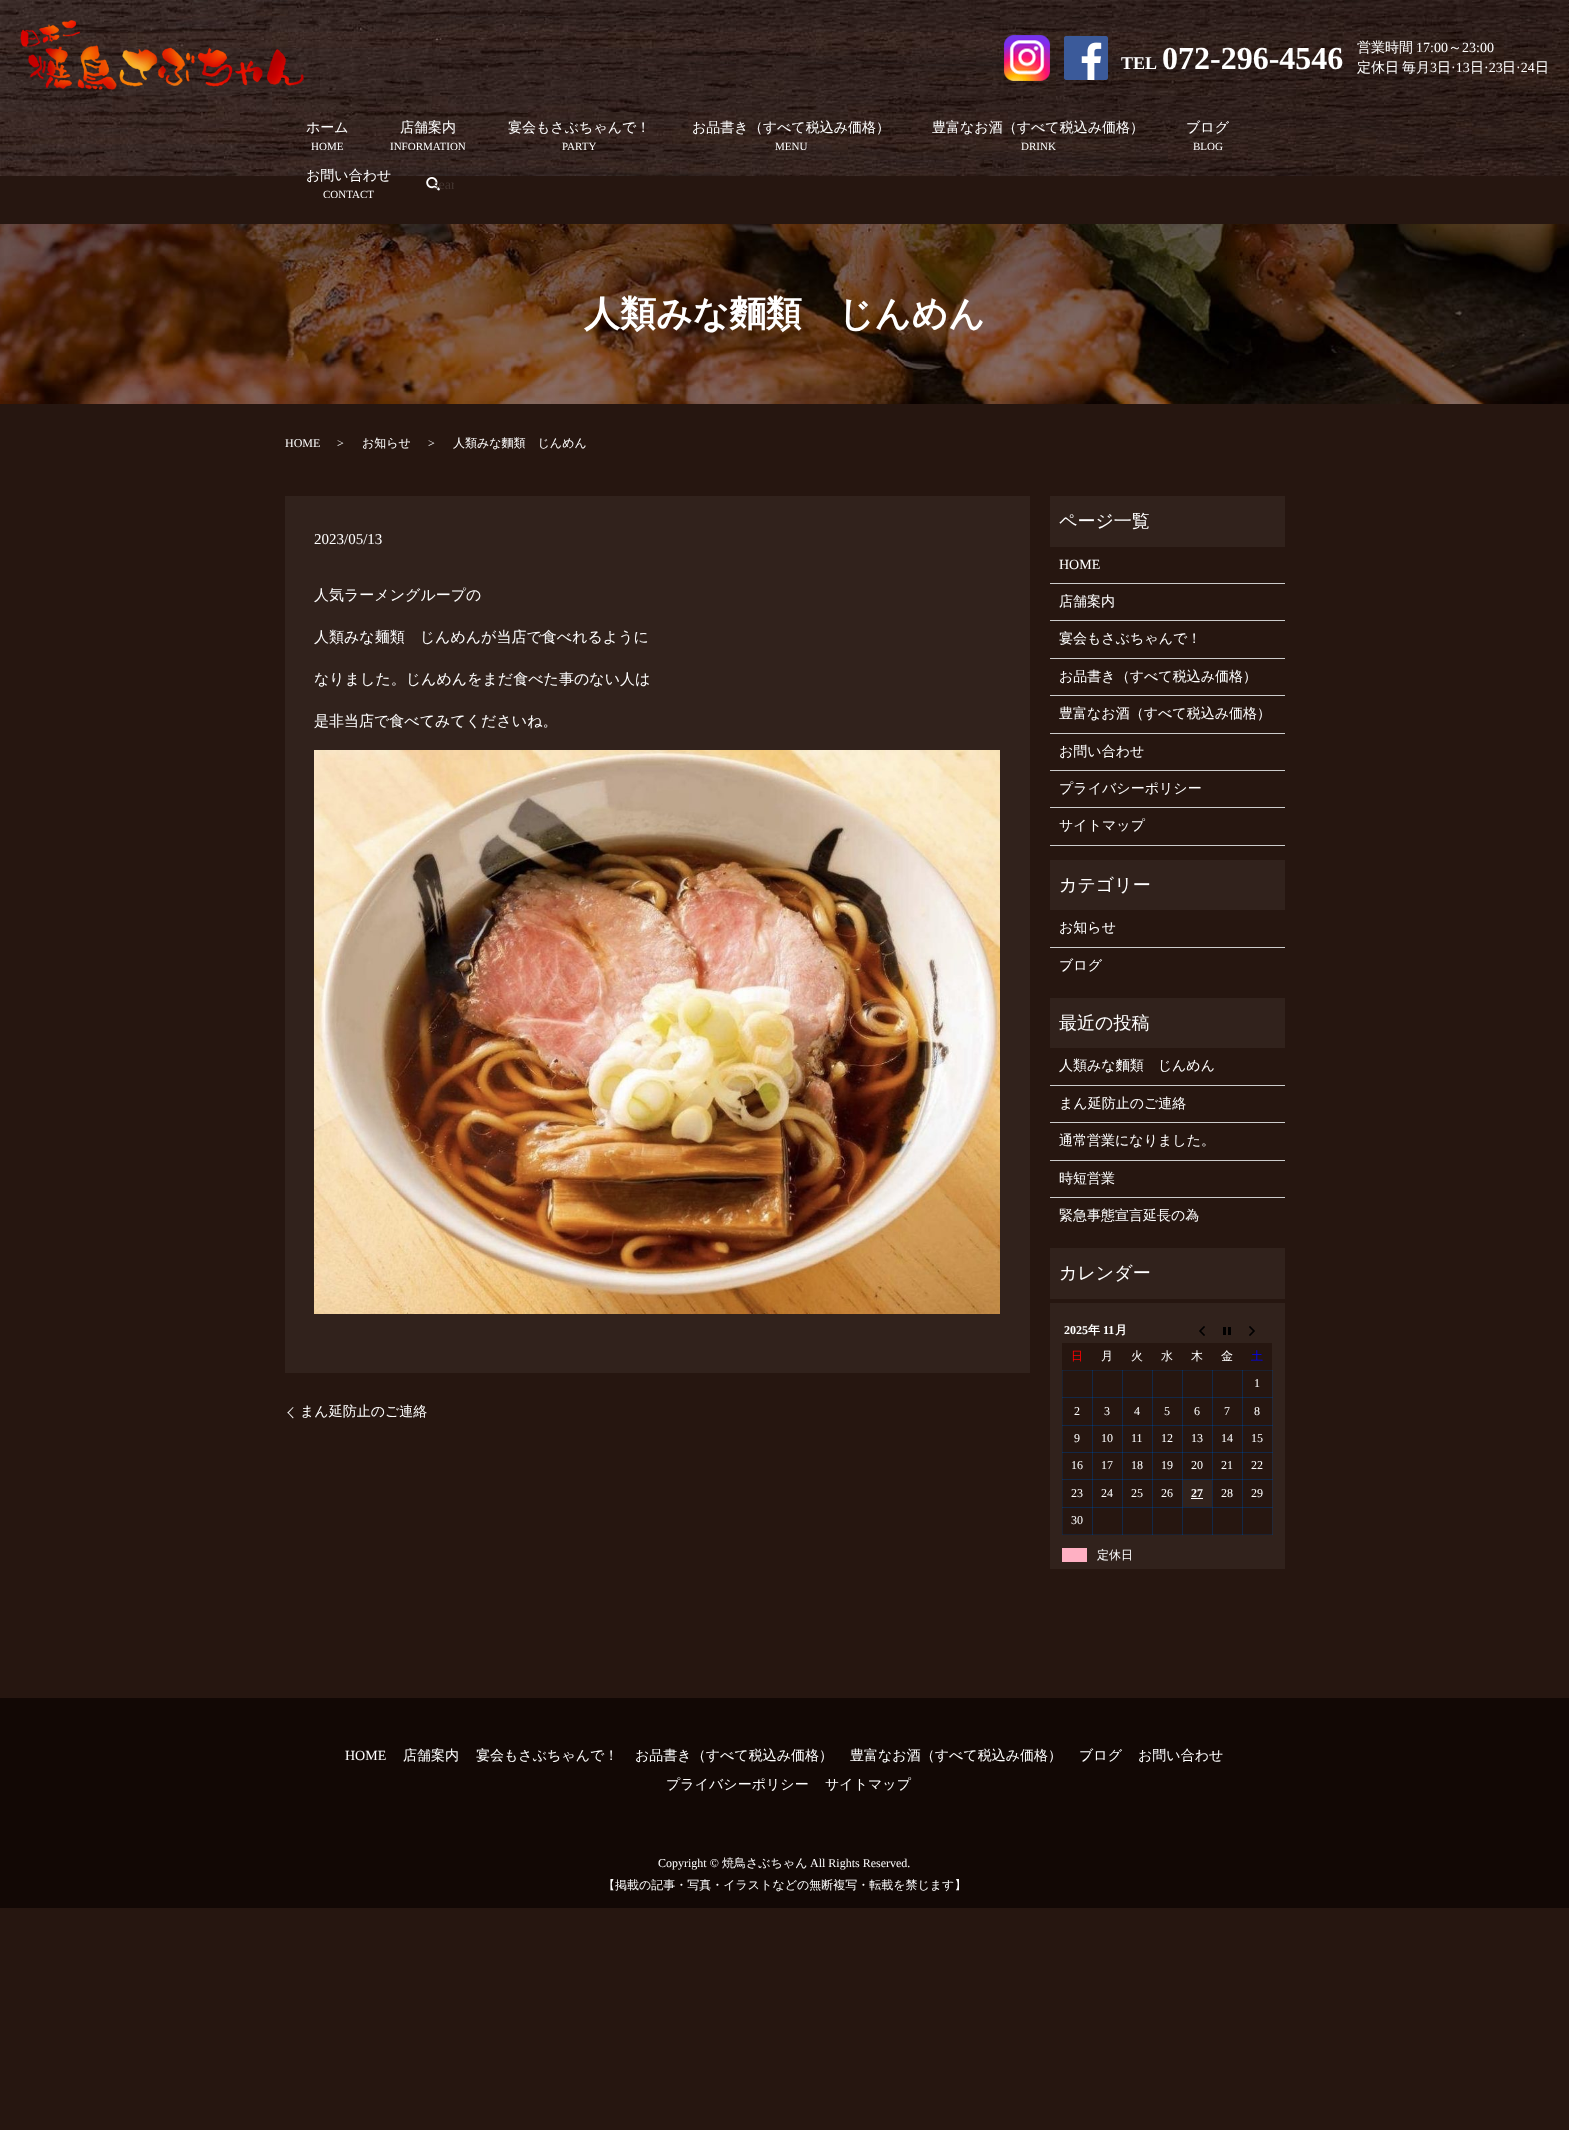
(async () => {
const canvas = document.querySelector("canvas")
canvas.width = 1569
canvas.height = 2130
const c = canvas.getContext("2d")
c.miterLimit = 4
c.fontKerning = "normal"
function T(s,x,y){c.fillText(s,x,y)}
function R(x,y,w,h){c.fillRect(x,y,w,h)}
async function I(src,x,y,w,h){const img=new Image();img.src=src;await img.decode();c.drawImage(img,x,y,w,h)}
let path
c.fillStyle="#261610"
R(0,0,1569,2130)
await I("1.png",0,0,1569,176)
await I("2.png",20,20,284,70)
await I("3.png",1004,35,46,46)
await I("4.png",1064,36,44,44)
c.font="bold 18px Liberation Serif"
c.fillStyle="#fff"
T("TEL",1121,69)
c.font="bold 32px Liberation Serif"
T("072-296-4546",1162,69)
c.font="500 14px WenQuanYi Zen Hei"
T("営業時間",1357,52)
c.font="14px Liberation Serif"
T("17:00",1416,52)
c.font="500 14px WenQuanYi Zen Hei"
T("～",1448,52)
c.font="14px Liberation Serif"
T("23:00",1462,52)
c.font="500 14px WenQuanYi Zen Hei"
T("定休日",1357,72)
T("毎月",1402,72)
c.font="14px Liberation Serif"
T("3",1430,72)
c.font="500 14px WenQuanYi Zen Hei"
T("日",1437,72)
c.font="14px Liberation Serif"
T("·13",1451,72)
c.font="500 14px WenQuanYi Zen Hei"
T("日",1470,72)
c.font="14px Liberation Serif"
T("·23",1484,72)
c.font="500 14px WenQuanYi Zen Hei"
T("日",1502,72)
c.font="14px Liberation Serif"
T("·24",1516,72)
c.font="500 14px WenQuanYi Zen Hei"
T("日",1535,72)
T("ホーム",306,132)
c.font="11px Liberation Serif"
T("HOME",311,150)
c.font="500 14px WenQuanYi Zen Hei"
T("店舗案内",400,132)
c.font="11px Liberation Serif"
T("INFORMATION",390,150)
c.font="500 14px WenQuanYi Zen Hei"
T("宴会もさぶちゃんで！",508,132)
c.font="11px Liberation Serif"
T("PARTY",562,150)
c.font="500 14px WenQuanYi Zen Hei"
T("お品書き（すべて税込み価格）",692,132)
c.font="11px Liberation Serif"
T("MENU",775,150)
c.font="500 14px WenQuanYi Zen Hei"
T("豊富なお酒（すべて税込み価格）",932,132)
c.font="11px Liberation Serif"
T("DRINK",1021,150)
c.font="500 14px WenQuanYi Zen Hei"
T("ブログ",1186,132)
c.font="11px Liberation Serif"
T("BLOG",1193,150)
c.font="500 14px WenQuanYi Zen Hei"
T("お問い合わせ",306,180)
c.font="11px Liberation Serif"
T("CONTACT",323,198)
await I("5.png",426,177,14,14)
c.save()
c.beginPath()
c.rect(412,170,42,28)
c.clip()
c.font="14px Liberation Serif"
c.fillStyle="#443631"
T("sear",433,189)
c.restore()
await I("6.png",0,224,1569,180)
c.font="bold 36px WenQuanYi Zen Hei"
T("人類みな麵類　じんめん",584,326)
c.font="12px Liberation Serif"
T("HOME",285,447)
T(">",337,447)
c.font="500 12px WenQuanYi Zen Hei"
T("お知らせ",362,447)
c.font="12px Liberation Serif"
T(">",428,447)
c.font="500 12px WenQuanYi Zen Hei"
T("人類みな麵類　じんめん",453,447)
c.fillStyle="#31221c"
R(285,496,745,877)
c.font="15px Liberation Serif"
c.fillStyle="#fff"
T("2023/05/13",314,544)
c.font="500 15px WenQuanYi Zen Hei"
T("人気ラーメングループの",314,600)
T("人類みな麺類　じんめんが当店で食べれるように",314,642)
T("なりました。じんめんをまだ食べた事のない人は",314,684)
T("是非当店で食べてみてくださいね。",314,726)
await I("7.png",314,750,686,564)
path = new Path2D("M287.5 1412.5l5.5-5.5l.5 .5l-5.5 6z")
c.fill(path)
c.font="500 14px WenQuanYi Zen Hei"
T("まん延防止のご連絡",300,1416)
path = new Path2D("M293 1418.5l-5.5-6l.5-.5l5.5 5.5z")
c.fill(path)
c.fillStyle="#31221c"
R(1050,496,235,51)
c.font="500 18px WenQuanYi Zen Hei"
c.fillStyle="#fff"
T("ページ一覧",1059,527)
c.fillStyle="#ccc"
R(1050,583,235,1)
c.font="14px Liberation Serif"
c.fillStyle="#fff"
T("HOME",1059,569)
c.fillStyle="#ccc"
R(1050,620,235,1)
c.font="500 14px WenQuanYi Zen Hei"
c.fillStyle="#fff"
T("店舗案内",1059,606)
c.fillStyle="#ccc"
R(1050,658,235,1)
c.fillStyle="#fff"
T("宴会もさぶちゃんで！",1059,643)
c.fillStyle="#ccc"
R(1050,695,235,1)
c.fillStyle="#fff"
T("お品書き（すべて税込み価格）",1059,681)
c.fillStyle="#ccc"
R(1050,733,235,1)
c.fillStyle="#fff"
T("豊富なお酒（すべて税込み価格）",1059,718)
c.fillStyle="#ccc"
R(1050,770,235,1)
c.fillStyle="#fff"
T("お問い合わせ",1059,756)
c.fillStyle="#ccc"
R(1050,807,235,1)
c.fillStyle="#fff"
T("プライバシーポリシー",1059,793)
c.fillStyle="#ccc"
R(1050,845,235,1)
c.fillStyle="#fff"
T("サイトマップ",1059,830)
c.fillStyle="#31221c"
R(1050,860,235,50)
c.font="500 18px WenQuanYi Zen Hei"
c.fillStyle="#fff"
T("カテゴリー",1059,891)
c.fillStyle="#ccc"
R(1050,947,235,1)
c.font="500 14px WenQuanYi Zen Hei"
c.fillStyle="#fff"
T("お知らせ",1059,932)
T("ブログ",1059,970)
c.fillStyle="#31221c"
R(1050,998,235,50)
c.font="500 18px WenQuanYi Zen Hei"
c.fillStyle="#fff"
T("最近の投稿",1059,1029)
c.fillStyle="#ccc"
R(1050,1085,235,1)
c.font="500 14px WenQuanYi Zen Hei"
c.fillStyle="#fff"
T("人類みな麵類　じんめん",1059,1070)
c.fillStyle="#ccc"
R(1050,1122,235,1)
c.fillStyle="#fff"
T("まん延防止のご連絡",1059,1108)
c.fillStyle="#ccc"
R(1050,1160,235,1)
c.fillStyle="#fff"
T("通常営業になりました。",1059,1145)
c.fillStyle="#ccc"
R(1050,1197,235,1)
c.fillStyle="#fff"
T("時短営業",1059,1183)
T("緊急事態宣言延長の為",1059,1220)
c.fillStyle="#31221c"
R(1050,1248,235,51)
c.font="500 18px WenQuanYi Zen Hei"
c.fillStyle="#fff"
T("カレンダー",1059,1279)
c.fillStyle="#31221c"
R(1050,1303,235,266)
c.fillStyle="#222938"
R(1272,1370,1,165)
c.fillStyle="#182e4c"
R(1272,1370,1,1)
c.fillStyle="#0c3364"
R(1272,1397,1,1)
R(1272,1425,1,1)
R(1272,1452,1,1)
c.fillStyle="#182e4c"
R(1182,1479,1,29)
c.fillStyle="#0c3364"
R(1272,1479,1,1)
c.fillStyle="#182e4c"
R(1272,1534,1,1)
c.fillStyle="#0c3364"
R(1272,1507,1,1)
c.font="bold 12px Liberation Serif"
c.fillStyle="#fff"
T("2025",1064,1334)
c.font="bold 12px WenQuanYi Zen Hei"
T("年",1088,1334)
c.font="bold 12px Liberation Serif"
T("11",1103,1334)
c.font="bold 12px WenQuanYi Zen Hei"
T("月",1115,1334)
await I("8.png",1199,1326,6,10)
await I("9.png",1223,1327,8,8)
await I("10.png",1249,1326,6,10)
c.fillStyle="#261610"
R(1062,1343,210,27)
c.font="500 12px WenQuanYi Zen Hei"
c.fillStyle="#f00"
T("日",1071,1360)
c.fillStyle="#fff"
T("月",1101,1360)
T("火",1131,1360)
T("水",1161,1360)
T("木",1191,1360)
T("金",1221,1360)
c.fillStyle="#00f"
T("土",1251,1360)
c.fillStyle="#261610"
R(1063,1371,29,26)
c.fillStyle="#1b2130"
R(1062,1370,1,165)
R(1062,1370,30,1)
c.fillStyle="#132846"
R(1062,1370,1,1)
R(1062,1397,30,1)
c.fillStyle="#093161"
R(1062,1397,1,1)
c.fillStyle="#261610"
R(1093,1371,29,26)
c.fillStyle="#132846"
R(1092,1370,1,165)
c.fillStyle="#1b2130"
R(1092,1370,30,1)
c.fillStyle="#093161"
R(1092,1370,1,1)
c.fillStyle="#132846"
R(1092,1397,30,1)
c.fillStyle="#023774"
R(1092,1397,1,1)
c.fillStyle="#261610"
R(1123,1371,29,26)
c.fillStyle="#132846"
R(1122,1370,1,165)
c.fillStyle="#1b2130"
R(1122,1370,30,1)
c.fillStyle="#093161"
R(1122,1370,1,1)
c.fillStyle="#132846"
R(1122,1397,30,1)
c.fillStyle="#023774"
R(1122,1397,1,1)
c.fillStyle="#261610"
R(1153,1371,29,26)
c.fillStyle="#132846"
R(1152,1370,1,165)
c.fillStyle="#1b2130"
R(1152,1370,30,1)
c.fillStyle="#093161"
R(1152,1370,1,1)
c.fillStyle="#132846"
R(1152,1397,30,1)
c.fillStyle="#023774"
R(1152,1397,1,1)
c.fillStyle="#261610"
R(1183,1371,29,26)
c.fillStyle="#132846"
R(1182,1370,1,110)
c.fillStyle="#1b2130"
R(1182,1370,30,1)
c.fillStyle="#093161"
R(1182,1370,1,1)
c.fillStyle="#132846"
R(1182,1397,30,1)
c.fillStyle="#023774"
R(1182,1397,1,1)
c.fillStyle="#261610"
R(1213,1371,29,26)
c.fillStyle="#132846"
R(1212,1370,1,165)
c.fillStyle="#1b2130"
R(1212,1370,30,1)
c.fillStyle="#093161"
R(1212,1370,1,1)
c.fillStyle="#132846"
R(1212,1397,30,1)
c.fillStyle="#023774"
R(1212,1397,1,1)
c.fillStyle="#261610"
R(1243,1371,29,26)
c.fillStyle="#132846"
R(1242,1370,1,165)
c.fillStyle="#1b2130"
R(1242,1370,30,1)
c.fillStyle="#093161"
R(1242,1370,1,1)
c.fillStyle="#132846"
R(1242,1397,30,1)
c.fillStyle="#023774"
R(1242,1397,1,1)
c.font="12px Liberation Serif"
c.fillStyle="#fff"
T("1",1254,1387)
c.fillStyle="#261610"
R(1063,1398,29,27)
c.fillStyle="#fff"
T("2",1074,1415)
c.fillStyle="#261610"
R(1093,1398,29,27)
c.fillStyle="#fff"
T("3",1104,1415)
c.fillStyle="#261610"
R(1123,1398,29,27)
c.fillStyle="#fff"
T("4",1134,1415)
c.fillStyle="#261610"
R(1153,1398,29,27)
c.fillStyle="#fff"
T("5",1164,1415)
c.fillStyle="#261610"
R(1183,1398,29,27)
c.fillStyle="#fff"
T("6",1194,1415)
c.fillStyle="#261610"
R(1213,1398,29,27)
c.fillStyle="#fff"
T("7",1224,1415)
c.fillStyle="#261610"
R(1243,1398,29,27)
c.fillStyle="#fff"
T("8",1254,1415)
c.fillStyle="#261610"
R(1063,1426,29,26)
c.fillStyle="#132846"
R(1062,1425,210,1)
c.fillStyle="#093161"
R(1062,1425,1,1)
c.fillStyle="#fff"
T("9",1074,1442)
c.fillStyle="#261610"
R(1093,1426,29,26)
c.fillStyle="#023774"
R(1092,1425,1,1)
c.fillStyle="#fff"
T("10",1101,1442)
c.fillStyle="#261610"
R(1123,1426,29,26)
c.fillStyle="#023774"
R(1122,1425,1,1)
c.fillStyle="#fff"
T("11",1131,1442)
c.fillStyle="#261610"
R(1153,1426,29,26)
c.fillStyle="#023774"
R(1152,1425,1,1)
c.fillStyle="#fff"
T("12",1161,1442)
c.fillStyle="#261610"
R(1183,1426,29,26)
c.fillStyle="#023774"
R(1182,1425,1,1)
c.fillStyle="#fff"
T("13",1191,1442)
c.fillStyle="#261610"
R(1213,1426,29,26)
c.fillStyle="#023774"
R(1212,1425,1,1)
c.fillStyle="#fff"
T("14",1221,1442)
c.fillStyle="#261610"
R(1243,1426,29,26)
c.fillStyle="#023774"
R(1242,1425,1,1)
c.fillStyle="#fff"
T("15",1251,1442)
c.fillStyle="#261610"
R(1063,1453,29,26)
c.fillStyle="#132846"
R(1062,1452,210,1)
c.fillStyle="#093161"
R(1062,1452,1,1)
c.fillStyle="#132846"
R(1062,1479,210,1)
c.fillStyle="#093161"
R(1062,1479,1,1)
c.fillStyle="#fff"
T("16",1071,1469)
c.fillStyle="#261610"
R(1093,1453,29,26)
c.fillStyle="#023774"
R(1092,1452,1,1)
R(1092,1479,1,1)
c.fillStyle="#fff"
T("17",1101,1469)
c.fillStyle="#261610"
R(1123,1453,29,26)
c.fillStyle="#023774"
R(1122,1452,1,1)
R(1122,1479,1,1)
c.fillStyle="#fff"
T("18",1131,1469)
c.fillStyle="#261610"
R(1153,1453,29,26)
c.fillStyle="#023774"
R(1152,1452,1,1)
R(1152,1479,1,1)
c.fillStyle="#fff"
T("19",1161,1469)
c.fillStyle="#261610"
R(1183,1453,29,26)
c.fillStyle="#023774"
R(1182,1452,1,1)
R(1182,1479,1,1)
c.fillStyle="#fff"
T("20",1191,1469)
c.fillStyle="#261610"
R(1213,1453,29,26)
c.fillStyle="#023774"
R(1212,1452,1,1)
R(1212,1479,1,1)
c.fillStyle="#fff"
T("21",1221,1469)
c.fillStyle="#261610"
R(1243,1453,29,26)
c.fillStyle="#023774"
R(1242,1452,1,1)
R(1242,1479,1,1)
c.fillStyle="#fff"
T("22",1251,1469)
c.fillStyle="#261610"
R(1063,1480,29,27)
c.fillStyle="#fff"
T("23",1071,1497)
c.fillStyle="#261610"
R(1093,1480,29,27)
c.fillStyle="#fff"
T("24",1101,1497)
c.fillStyle="#261610"
R(1123,1480,29,27)
c.fillStyle="#fff"
T("25",1131,1497)
c.fillStyle="#261610"
R(1153,1480,29,27)
c.fillStyle="#fff"
T("26",1161,1497)
c.font="bold 12px Liberation Serif"
T("27",1191,1497)
R(1191,1498,12,1)
c.fillStyle="#261610"
R(1213,1480,29,27)
c.font="12px Liberation Serif"
c.fillStyle="#fff"
T("28",1221,1497)
c.fillStyle="#261610"
R(1243,1480,29,27)
c.fillStyle="#fff"
T("29",1251,1497)
c.fillStyle="#261610"
R(1093,1508,29,26)
c.fillStyle="#1b2130"
R(1062,1534,120,1)
c.fillStyle="#093161"
R(1092,1534,1,1)
c.fillStyle="#132846"
R(1062,1507,120,1)
c.fillStyle="#023774"
R(1092,1507,1,1)
c.fillStyle="#261610"
R(1123,1508,29,26)
c.fillStyle="#093161"
R(1122,1534,1,1)
c.fillStyle="#023774"
R(1122,1507,1,1)
c.fillStyle="#261610"
R(1153,1508,29,26)
c.fillStyle="#093161"
R(1152,1534,1,1)
c.fillStyle="#023774"
R(1152,1507,1,1)
c.fillStyle="#261610"
R(1183,1508,29,26)
c.fillStyle="#132846"
R(1182,1507,1,28)
c.fillStyle="#1b2130"
R(1182,1534,90,1)
c.fillStyle="#093161"
R(1182,1534,1,1)
c.fillStyle="#132846"
R(1182,1507,90,1)
c.fillStyle="#023774"
R(1182,1507,1,1)
c.fillStyle="#261610"
R(1063,1508,29,26)
c.fillStyle="#132846"
R(1062,1534,1,1)
c.fillStyle="#093161"
R(1062,1507,1,1)
c.fillStyle="#fff"
T("30",1071,1524)
c.fillStyle="#261610"
R(1213,1508,29,26)
c.fillStyle="#093161"
R(1212,1534,1,1)
c.fillStyle="#023774"
R(1212,1507,1,1)
c.fillStyle="#261610"
R(1243,1508,29,26)
c.fillStyle="#093161"
R(1242,1534,1,1)
c.fillStyle="#023774"
R(1242,1507,1,1)
c.fillStyle="#ffb0c3"
R(1062,1548,25,14)
c.font="500 12px WenQuanYi Zen Hei"
c.fillStyle="#fff"
T("定休日",1097,1559)
c.fillStyle="#120805"
R(0,1698,1569,210)
c.font="14px Liberation Serif"
c.fillStyle="#fff"
T("HOME",345,1760)
c.font="500 14px WenQuanYi Zen Hei"
T("店舗案内",403,1760)
T("宴会もさぶちゃんで！",476,1760)
T("お品書き（すべて税込み価格）",635,1760)
T("豊富なお酒（すべて税込み価格）",850,1760)
T("ブログ",1079,1760)
T("お問い合わせ",1138,1760)
T("プライバシーポリシー",666,1789)
T("サイトマップ",825,1789)
c.font="12px Liberation Serif"
T("Copyright ©",658,1867)
c.font="500 12px WenQuanYi Zen Hei"
T("焼鳥さぶちゃん",722,1867)
c.font="12px Liberation Serif"
T("All Rights Reserved.",810,1867)
c.font="500 12px WenQuanYi Zen Hei"
T("【掲載の記事・写真・イラストなどの無断複写・転載を禁じます】",603,1889)
})()
